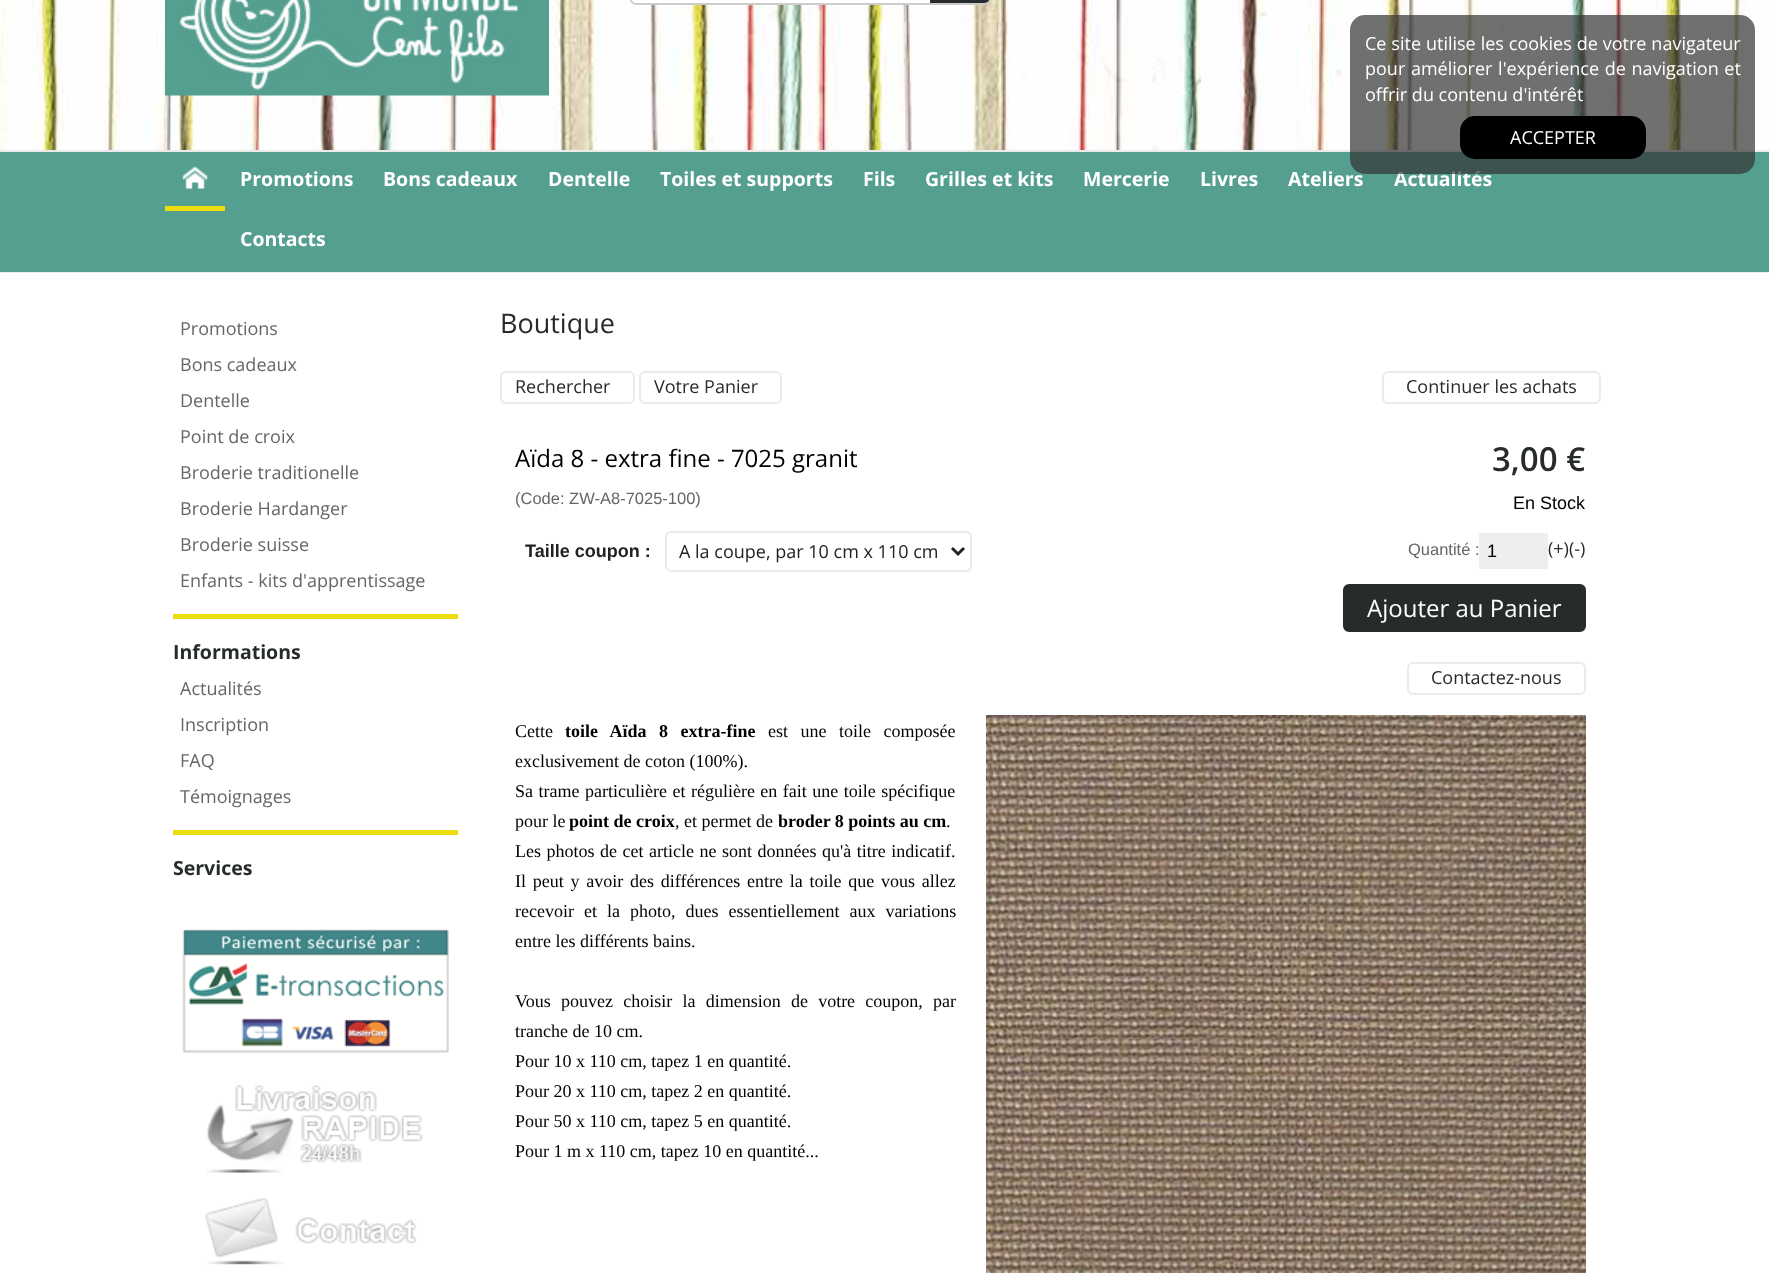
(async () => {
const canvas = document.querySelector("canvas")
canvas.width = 1769
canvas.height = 1273
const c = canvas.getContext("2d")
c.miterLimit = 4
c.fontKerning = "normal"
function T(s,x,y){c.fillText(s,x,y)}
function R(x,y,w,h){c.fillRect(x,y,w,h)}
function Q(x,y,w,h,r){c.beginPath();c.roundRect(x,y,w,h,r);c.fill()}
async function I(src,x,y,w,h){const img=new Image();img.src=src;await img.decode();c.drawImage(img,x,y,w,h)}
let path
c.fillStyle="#559f90"
R(0,0,1769,1273)
await I("2.png",0,0,1769,150)
c.fillStyle="#ebebeb"
R(0,150,1769,2)
c.font="bold 19.5px Open Sans"
c.fillStyle="#fff"
T("Ateliers",1288,186)
T("Actualités",1394,186)
c.fillStyle="#333333b3"
Q(1350,15,405,159,15)
c.wordSpacing="0.25px"
c.font="18px Open Sans"
c.fillStyle="#fff"
T("Ce site utilise les cookies de votre navigateur",1365,50)
c.wordSpacing="1px"
T("pour améliorer l'expérience de navigation et",1365,75)
c.wordSpacing="0px"
T("offrir du contenu d'intérêt",1365,101)
c.fillStyle="#000"
Q(1460,116,186,43,15)
c.fillStyle="#fff"
T("ACCEPTER",1510,144)
c.fillStyle="#eee"
R(0,272,1769,1)
c.fillStyle="#fff"
c.beginPath()
c.roundRect(631,-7,358,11,5)
c.fill()
c.strokeStyle="#ccc"
c.lineWidth=2
c.stroke()
R(633,1,1,1)
c.fillStyle="#272b2b"
path = new Path2D("M930-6h54c3.5 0 6 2.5 6 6v-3c0 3.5-2.5 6-6 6h-54z")
c.fill(path)
await I("1.png",182,166,26,23)
c.fillStyle="#ecdd10"
R(165,206,60,5)
await I("3.png",165,0,384,96)
c.font="bold 19.5px Open Sans"
c.fillStyle="#fff"
T("Promotions",240,186)
T("Bons cadeaux",383,186)
T("Dentelle",548,186)
T("Toiles et supports",660,186)
T("Fils",863,186)
T("Grilles et kits",925,186)
T("Mercerie",1083,186)
T("Livres",1200,186)
T("Contacts",240,246)
R(0,273,1769,1000)
c.font="18px Open Sans"
c.fillStyle="#666"
T("Promotions",180,335)
T("Bons cadeaux",180,371)
T("Dentelle",180,407)
T("Point de croix",180,443)
T("Broderie traditionelle",180,479)
T("Broderie Hardanger",180,515)
T("Broderie suisse",180,551)
T("Enfants - kits d'apprentissage",180,587)
c.fillStyle="#ecdd10"
R(173,614,285,5)
c.font="bold 19.5px Open Sans"
c.fillStyle="#272b2b"
T("Informations",173,659)
c.font="18px Open Sans"
c.fillStyle="#666"
T("Actualités",180,695)
T("Inscription",180,731)
T("FAQ",180,767)
T("Témoignages",180,803)
c.fillStyle="#ecdd10"
R(173,830,285,5)
c.font="bold 19.5px Open Sans"
c.fillStyle="#272b2b"
T("Services",173,875)
await I("4.png",182,929,267,124)
await I("5.png",206,1085,217,88)
await I("6.png",205,1198,212,67)
c.font="27px Open Sans"
T("Boutique",500,333)
c.beginPath()
c.roundRect(501,372,133,31,5)
c.strokeStyle="#ebebeb"
c.stroke()
c.font="18px Open Sans"
T("Rechercher",515,393)
c.beginPath()
c.roundRect(640,372,141,31,5)
c.stroke()
T("Votre Panier",654,393)
c.beginPath()
c.roundRect(1383,372,217,31,5)
c.stroke()
T("Continuer les achats",1406,393)
c.font="24px Open Sans"
c.fillStyle="#000"
T("Aïda 8 - extra fine - 7025 granit",515,467)
c.font="16.5px Liberation Sans"
c.fillStyle="#666"
T("(Code: ZW-A8-7025-100)",515,504)
c.font="bold 18px Liberation Sans"
c.fillStyle="#222"
T("Taille coupon :",525,557)
c.beginPath()
c.roundRect(666,532,305,39,5)
c.stroke()
path = new Path2D("M952 548l6 6l6-6")
c.strokeStyle="#222"
c.lineWidth=3
c.stroke(path)
c.font="18px Open Sans"
T("A la coupe, par 10 cm x 110 cm",679,558)
c.font="600 33px Open Sans"
c.fillStyle="#272b2b"
T("3,00 €",1492,471)
c.font="18px Liberation Sans"
c.fillStyle="#000"
T("En Stock",1513,509)
c.font="16.5px Liberation Sans"
c.fillStyle="#666"
T("Quantité :",1408,555)
c.fillStyle="#eee"
R(1479,533,69,36)
c.font="18px Liberation Sans"
c.fillStyle="#000"
T("1",1487,557)
c.font="18px Open Sans"
c.fillStyle="#272b2b"
T("(+)(-)",1548,555)
c.beginPath()
c.roundRect(1344,585,241,46,5)
c.fill()
c.strokeStyle="#272b2b"
c.lineWidth=2
c.stroke()
c.font="24px Open Sans"
c.fillStyle="#fff"
T("Ajouter au Panier",1367,617)
c.beginPath()
c.roundRect(1408,663,177,31,5)
c.strokeStyle="#ebebeb"
c.stroke()
c.font="18px Open Sans"
c.fillStyle="#272b2b"
T("Contactez-nous",1431,684)
c.font="18px Liberation Serif"
c.fillStyle="#000"
T("Cette",515,737)
c.wordSpacing="8px"
c.font="bold 18px Liberation Serif"
T("toile Aïda 8 extra-fine",565,737)
c.font="18px Liberation Serif"
T("est une toile composée",768,737)
c.wordSpacing="0px"
T("exclusivement de coton (100%).",515,767)
c.wordSpacing="1px"
T("Sa trame particulière et régulière en fait une toile spécifique",515,797)
c.wordSpacing="0px"
T("pour le",515,827)
c.font="bold 18px Liberation Serif"
T("point de croix",569,827)
c.fillStyle="#fff"
R(675,826,1,1)
c.font="18px Liberation Serif"
c.fillStyle="#000"
T(", et permet de",675,827)
c.font="bold 18px Liberation Serif"
T("broder 8 points au cm",778,827)
c.font="18px Liberation Serif"
T(".",946,827)
c.wordSpacing="1px"
T("Les photos de cet article ne sont données qu'à titre indicatif.",515,857)
c.wordSpacing="2.25px"
T("Il peut y avoir des différences entre la toile que vous allez",515,887)
c.wordSpacing="5.5px"
T("recevoir et la photo, dues essentiellement aux variations",515,917)
c.wordSpacing="0px"
T("entre les différents bains.",515,947)
c.wordSpacing="5.75px"
T("Vous pouvez choisir la dimension de votre coupon, par",515,1007)
c.wordSpacing="0px"
T("tranche de 10 cm.",515,1037)
T("Pour 10 x 110 cm, tapez 1 en quantité.",515,1067)
T("Pour 20 x 110 cm, tapez 2 en quantité.",515,1097)
T("Pour 50 x 110 cm, tapez 5 en quantité.",515,1127)
T("Pour 1 m x 110 cm, tapez 10 en quantité...",515,1157)
await I("7.png",986,715,600,558)
})()
